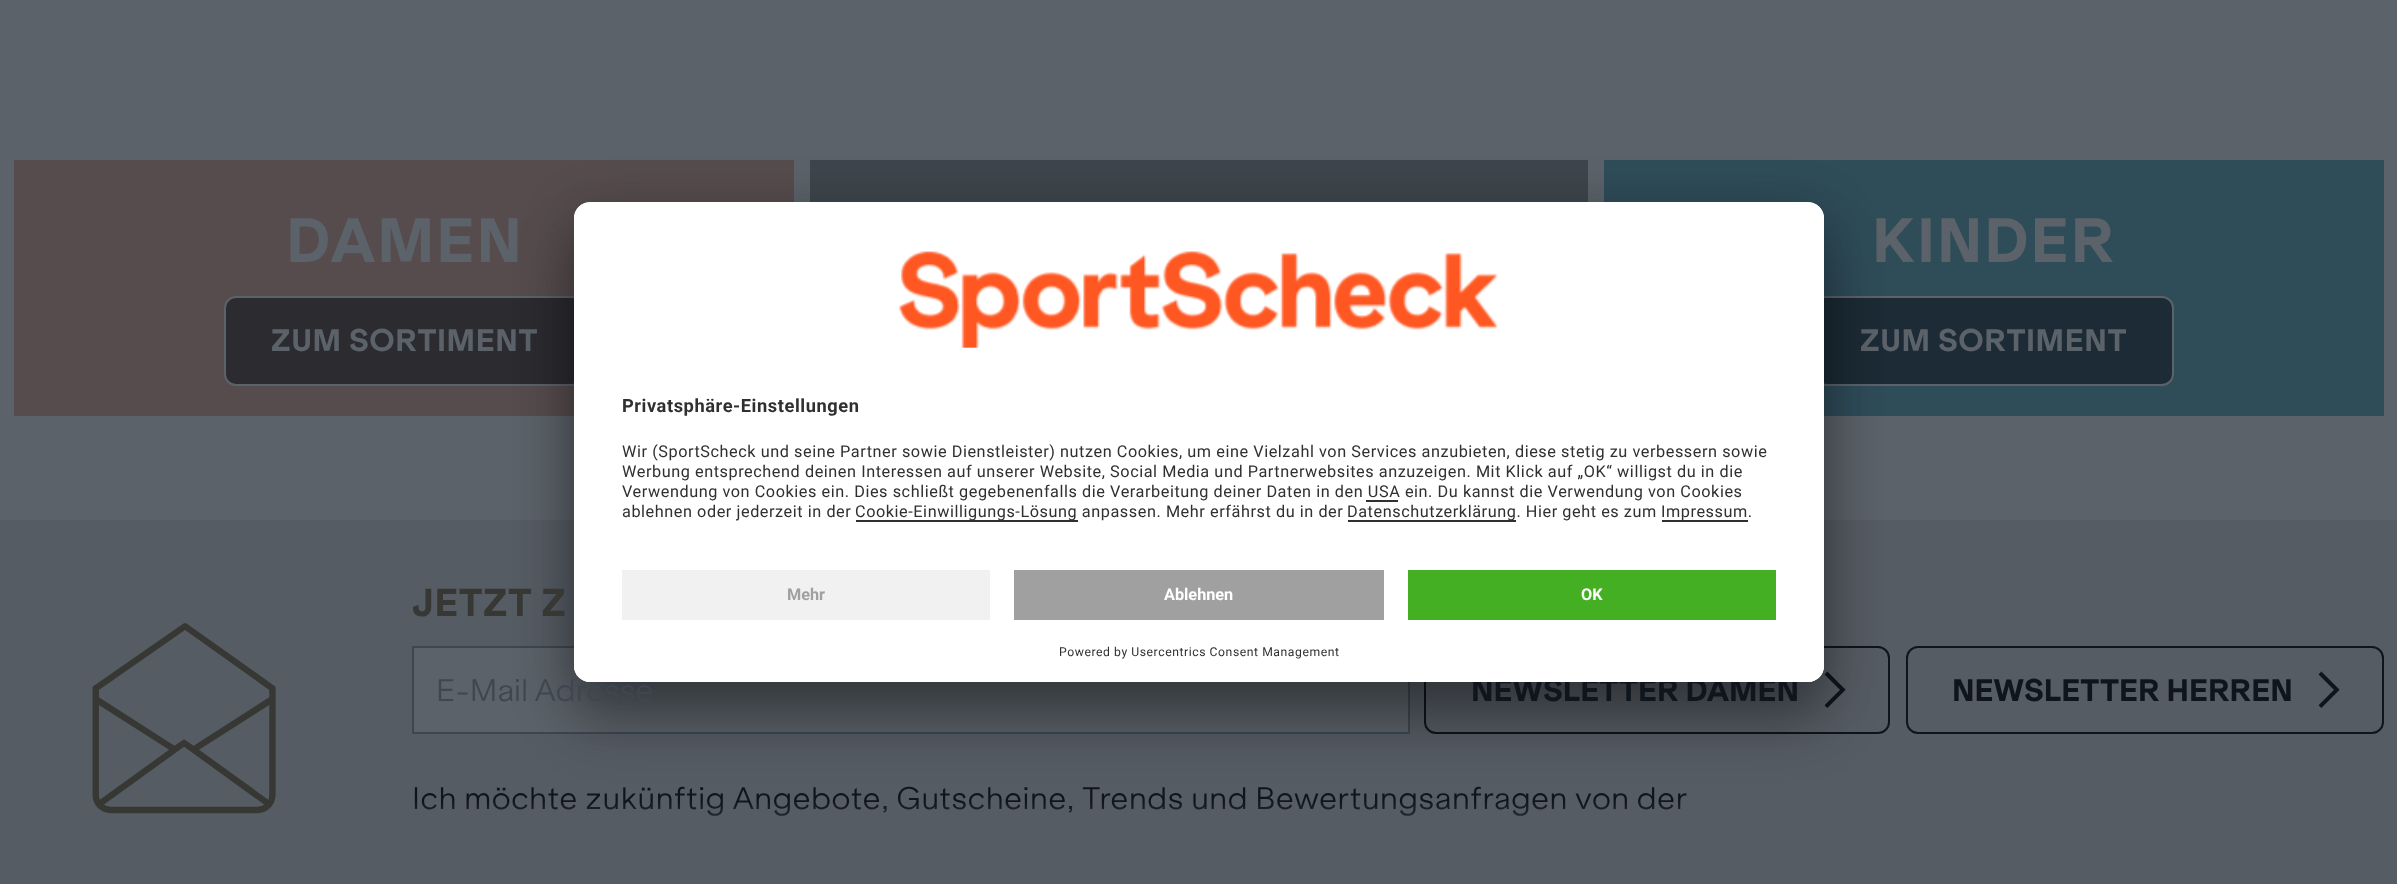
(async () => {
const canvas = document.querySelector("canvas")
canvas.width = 2397
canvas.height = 884
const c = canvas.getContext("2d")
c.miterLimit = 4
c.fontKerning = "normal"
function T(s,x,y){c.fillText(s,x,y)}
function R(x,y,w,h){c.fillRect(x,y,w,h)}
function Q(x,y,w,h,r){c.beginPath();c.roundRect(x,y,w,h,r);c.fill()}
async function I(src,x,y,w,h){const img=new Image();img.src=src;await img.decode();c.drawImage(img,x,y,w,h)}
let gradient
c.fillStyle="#5b6269"
R(0,0,2397,884)
c.fillStyle="#3e454c"
R(810,160,778,42)
c.fillStyle="#564c4d"
R(14,160,780,256)
c.letterSpacing="2px"
c.font="800 59.5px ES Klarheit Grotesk"
c.fillStyle="#5b6269"
T("DAMEN",286,262)
c.fillStyle="#2b2b30"
c.beginPath()
c.roundRect(225,297,358,88,11)
c.fill()
c.strokeStyle="#5b6269"
c.lineWidth=2
c.stroke()
c.letterSpacing="0.56px"
c.font="800 29.7px ES Klarheit Grotesk"
c.fillStyle="#5b6269"
T("ZUM SORTIMENT",271,351)
c.fillStyle="#2f4c59"
R(1604,160,780,256)
c.letterSpacing="2px"
c.font="800 59.5px ES Klarheit Grotesk"
c.fillStyle="#5b6269"
T("KINDER",1872,262)
c.fillStyle="#1c2b35"
c.beginPath()
c.roundRect(1815,297,358,88,11)
c.fill()
c.stroke()
c.letterSpacing="0.56px"
c.font="800 29.7px ES Klarheit Grotesk"
c.fillStyle="#5b6269"
T("ZUM SORTIMENT",1860,351)
c.fillStyle="#565c64"
R(0,520,2397,364)
c.fillStyle="#5b6269"
c.beginPath()
c.rect(413,647,996,86)
c.fill()
c.strokeStyle="#3e4751"
c.stroke()
c.beginPath()
c.roundRect(1425,647,464,86,11)
c.strokeStyle="#0f151c"
c.stroke()
await I("3.png",1824,671,22,37)
c.beginPath()
c.roundRect(1907,647,476,86,11)
c.stroke()
c.wordSpacing="-0.25px"
c.font="300 29.7px ES Klarheit Grotesk"
c.fillStyle="#0f151c"
T("Ich möchte zukünftig Angebote, Gutscheine, Trends und Bewertungsanfragen von der",412,809)
gradient = c.createLinearGradient(1089,800,1089,860)
gradient.addColorStop(0,"#565c6400")
gradient.addColorStop(1,"#565c64")
c.fillStyle = gradient
R(415,802,1266,14)
c.fillStyle="#0000004d"
c.filter="blur(28px)"
c.beginPath()
c.roundRect(574,242,1250,480,16)
c.fill()
c.filter="none"
c.fillStyle="#00000038"
c.filter="blur(26px)"
c.beginPath()
c.roundRect(574,212,1250,480,16)
c.fill()
c.filter="none"
c.letterSpacing="0px"
c.wordSpacing="0px"
c.fillStyle="#3e4751"
T("E-Mail Adresse",436,701)
c.font="800 29.7px ES Klarheit Grotesk"
c.fillStyle="#0f151c"
T("NEWSLETTER DAMEN",1471,701)
c.fillStyle="#fff"
Q(574,202,1250,480,16)
c.save()
c.beginPath()
c.roundRect(574,202,1250,480,16)
c.clip()
c.beginPath()
c.roundRect(574,202,1250,352,[16,16,0,0])
c.clip()
R(574,204,1250,350)
c.restore()
await I("1.png",899,251,599,97)
c.letterSpacing="0.56px"
c.font="bold 18.25px Roboto"
c.fillStyle="#303030"
T("Privatsphäre-Einstellungen",622,412)
c.font="16.25px Roboto"
T("Wir (SportScheck und seine Partner sowie Dienstleister) nutzen Cookies, um eine Vielzahl von Services anzubieten, diese stetig zu verbessern sowie",622,457)
T("Werbung entsprechend deinen Interessen auf unserer Website, Social Media und Partnerwebsites anzuzeigen. Mit Klick auf „OK“ willigst du in die",622,477)
T("Verwendung von Cookies ein. Dies schließt gegebenenfalls die Verarbeitung deiner Daten in den USA ein. Du kannst die Verwendung von Cookies",622,497)
R(1366,500,32,2)
T("ablehnen oder jederzeit in der",622,517)
R(856,520,222,2)
T("Cookie-Einwilligungs-Lösung anpassen. Mehr erfährst du in der",855,517)
R(1348,520,168,2)
T("Datenschutzerklärung. Hier geht es zum",1347,517)
R(1662,520,86,2)
T("Impressum.",1661,517)
c.fillStyle="#fff"
c.beginPath()
c.roundRect(574,554,1250,128,[0,0,16,16])
c.fill()
c.fillStyle="#f1f1f1"
R(622,570,368,50)
c.letterSpacing="0px"
c.font="bold 16.25px Roboto"
c.fillStyle="#a0a0a0"
T("Mehr",787,600)
R(1014,570,370,50)
c.fillStyle="#fff"
T("Ablehnen",1164,600)
c.fillStyle="#44af23"
R(1408,570,368,50)
c.fillStyle="#fff"
T("OK",1581,600)
c.letterSpacing="0.56px"
c.font="12.2px Roboto"
c.fillStyle="#303030"
T("Powered by Usercentrics Consent Management",1059,656)
await I("2.png",92,623,184,191)
c.font="800 37px ES Klarheit Grotesk"
c.fillStyle="#373833"
T("JETZT Z",412,616)
c.letterSpacing="0px"
c.font="800 29.7px ES Klarheit Grotesk"
c.fillStyle="#0f151c"
T("NEWSLETTER HERREN",1952,701)
await I("3.png",2318,671,22,37)
})()
